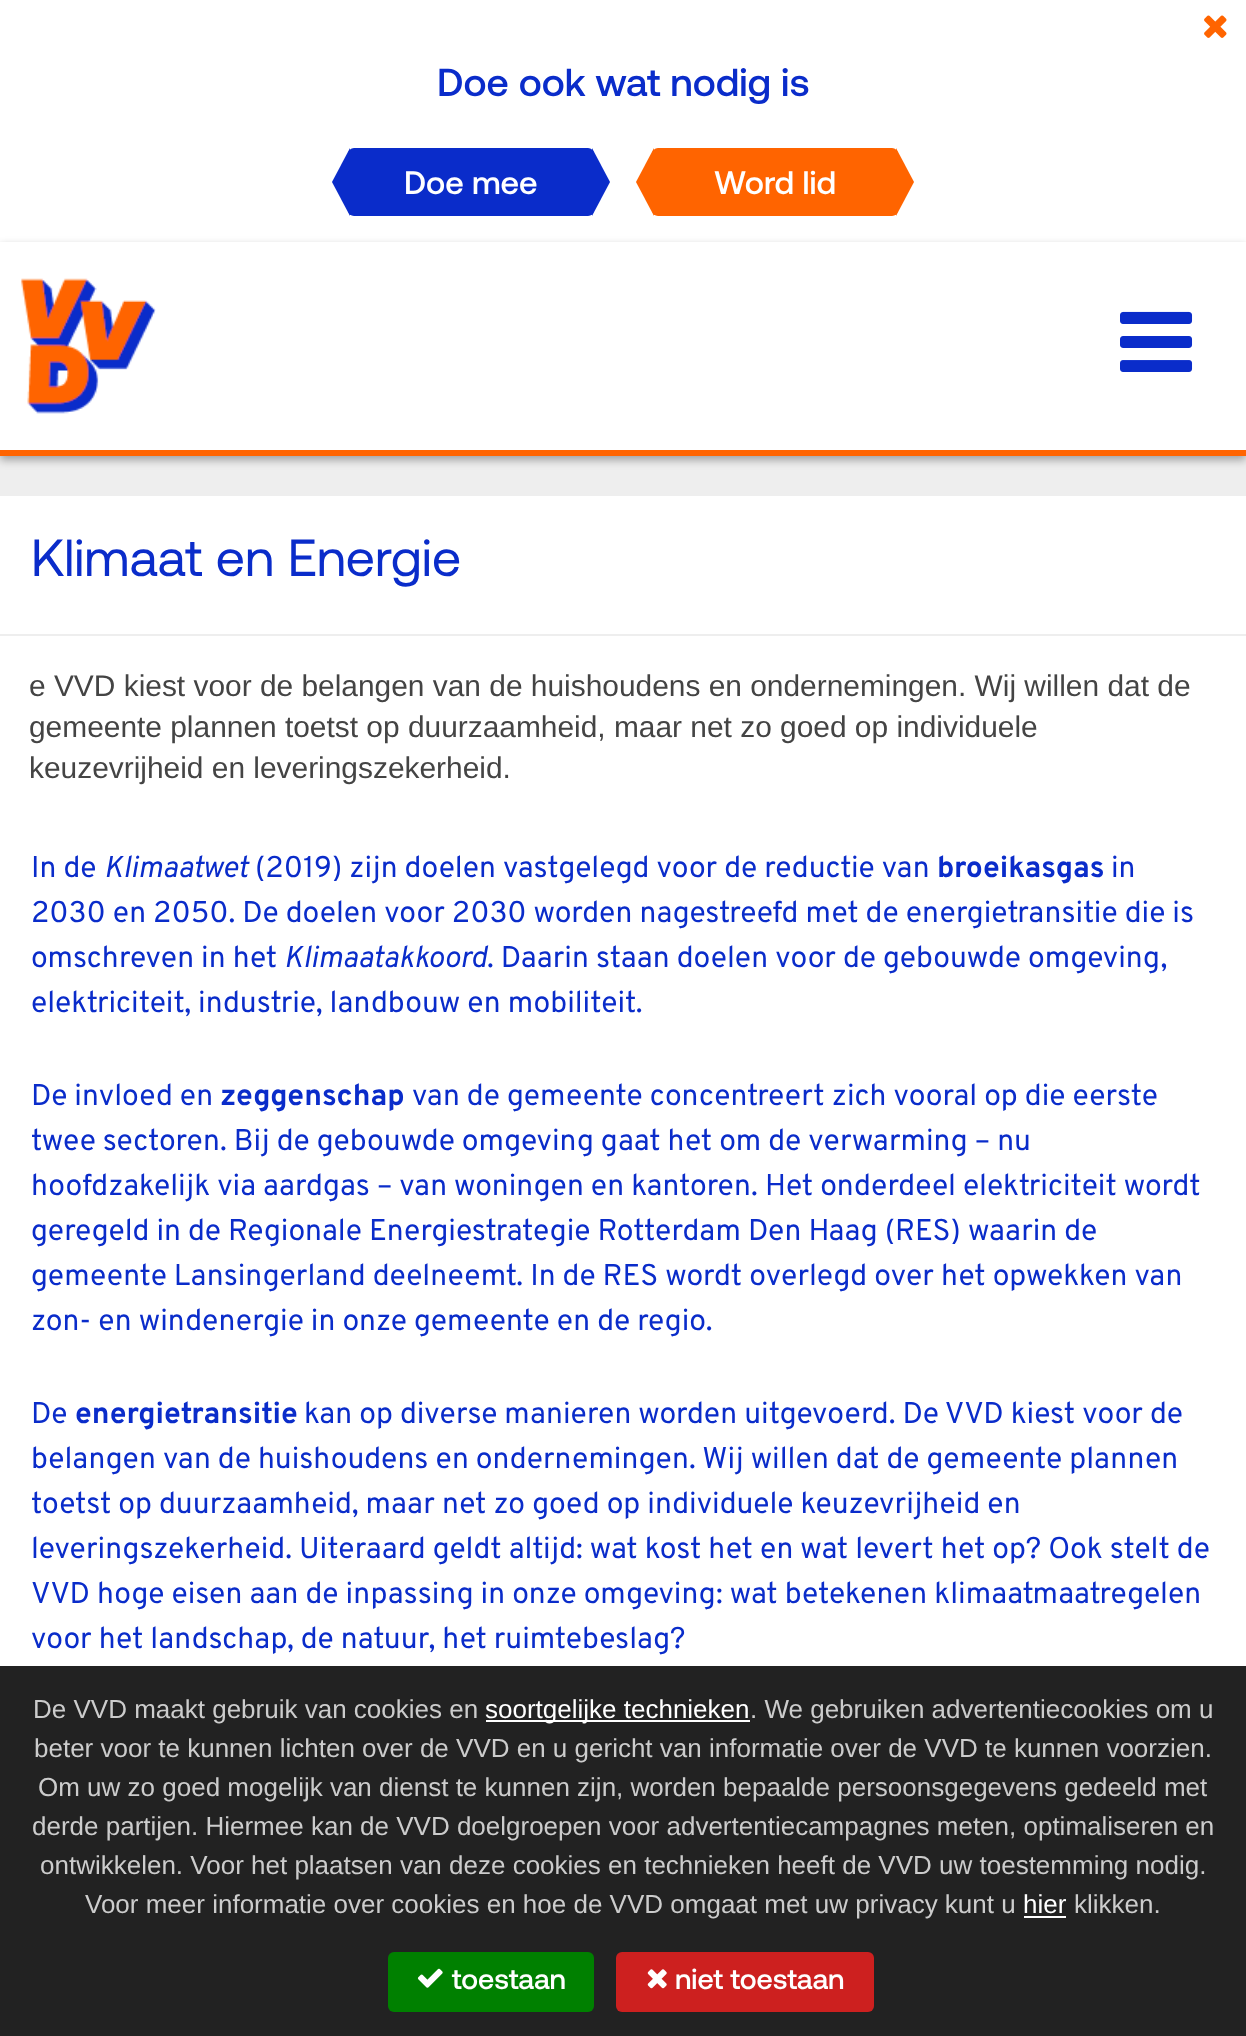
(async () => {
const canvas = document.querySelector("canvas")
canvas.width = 1246
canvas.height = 2036
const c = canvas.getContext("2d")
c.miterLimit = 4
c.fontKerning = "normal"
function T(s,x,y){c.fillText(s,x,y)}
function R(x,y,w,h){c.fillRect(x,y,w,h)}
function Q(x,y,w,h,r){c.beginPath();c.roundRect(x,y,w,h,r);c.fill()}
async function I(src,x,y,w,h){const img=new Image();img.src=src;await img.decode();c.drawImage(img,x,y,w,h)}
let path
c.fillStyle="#eee"
R(0,0,1246,2036)
c.fillStyle="#fff"
R(0,0,1246,242)
await I("1.png",1204,15,23,23)
c.font="500 39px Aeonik"
c.fillStyle="#0a2cca"
T("Doe ook wat nodig is",437,96)
Q(348,148,246,68,6)
path = new Path2D("M350 148v68l-18-34z")
c.fill(path)
c.font="500 32.5px Aeonik"
c.fillStyle="#fff"
T("Doe mee",404,194)
c.fillStyle="#0a2cca"
path = new Path2D("M592 216v-68l18 34z")
c.fill(path)
c.fillStyle="#ff6400"
Q(652,148,246,68,6)
path = new Path2D("M654 148v68l-18-34z")
c.fill(path)
c.fillStyle="#fff"
T("Word lid",714,194)
c.fillStyle="#ff6400"
path = new Path2D("M896 216v-68l18 34z")
c.fill(path)
c.fillStyle="#00000054"
c.filter="blur(4px)"
c.beginPath()
c.rect(0,246,1246,214)
c.fill()
c.filter="none"
c.fillStyle="#fff"
R(0,242,1246,208)
c.fillStyle="#ff6400"
R(0,450,1246,6)
await I("2.png",21,278,135,136)
await I("3.png",1120,311,73,61)
c.fillStyle="#fff"
R(0,496,1246,1170)
c.fillStyle="#eee"
R(0,634,1246,2)
c.font="52px Aeonik"
c.fillStyle="#0a2cca"
T("Klimaat en Energie",31,576)
c.font="29.9px Liberation Sans"
c.fillStyle="#444"
T("e VVD kiest voor de belangen van de huishoudens en ondernemingen. Wij willen dat de",29,696)
T("gemeente plannen toetst op duurzaamheid, maar net zo goed op individuele",29,737)
T("keuzevrijheid en leveringszekerheid.",29,778)
c.font="30px Overpass"
c.fillStyle="#0a2cca"
T("In de",31,877)
c.font="italic 30px Overpass"
T("Klimaatwet",104,877)
c.font="30px Overpass"
T("(2019) zijn doelen vastgelegd voor de reductie van",255,877)
c.font="bold 30px Overpass"
T("broeikasgas",937,877)
c.font="30px Overpass"
T("in",1111,877)
T("2030 en 2050. De doelen voor 2030 worden nagestreefd met de energietransitie die is",31,922)
T("omschreven in het",31,967)
c.font="italic 30px Overpass"
T("Klimaatakkoord",284,967)
c.font="30px Overpass"
T(". Daarin staan doelen voor de gebouwde omgeving,",487,967)
T("elektriciteit, industrie, landbouw en mobiliteit.",31,1012)
T("De invloed en",31,1105)
c.font="bold 30px Overpass"
T("zeggenschap",220,1105)
c.font="30px Overpass"
T("van de gemeente concentreert zich vooral op die eerste",412,1105)
T("twee sectoren. Bij de gebouwde omgeving gaat het om de verwarming – nu",31,1150)
T("hoofdzakelijk via aardgas – van woningen en kantoren. Het onderdeel elektriciteit wordt",31,1195)
T("geregeld in de Regionale Energiestrategie Rotterdam Den Haag (RES) waarin de",31,1240)
T("gemeente Lansingerland deelneemt. In de RES wordt overlegd over het opwekken van",31,1285)
T("zon- en windenergie in onze gemeente en de regio.",31,1330)
T("De",31,1423)
c.font="bold 30px Overpass"
T("energietransitie",75,1423)
c.font="30px Overpass"
T("kan op diverse manieren worden uitgevoerd. De VVD kiest voor de",304,1423)
T("belangen van de huishoudens en ondernemingen. Wij willen dat de gemeente plannen",31,1468)
T("toetst op duurzaamheid, maar net zo goed op individuele keuzevrijheid en",31,1513)
T("leveringszekerheid. Uiteraard geldt altijd: wat kost het en wat levert het op? Ook stelt de",31,1558)
T("VVD hoge eisen aan de inpassing in onze omgeving: wat betekenen klimaatmaatregelen",31,1603)
T("voor het landschap, de natuur, het ruimtebeslag?",31,1648)
c.fillStyle="#222"
R(0,1666,1246,370)
c.font="26px Liberation Sans"
c.fillStyle="#ccc"
T("De VVD maakt gebruik van cookies en",33,1718)
c.fillStyle="#fff"
R(486,1720,264,2)
T("soortgelijke technieken",485,1718)
c.fillStyle="#ccc"
T(". We gebruiken advertentiecookies om u",750,1718)
T("beter voor te kunnen lichten over de VVD en u gericht van informatie over de VVD te kunnen voorzien.",34,1757)
T("Om uw zo goed mogelijk van dienst te kunnen zijn, worden bepaalde persoonsgegevens gedeeld met",38,1796)
T("derde partijen. Hiermee kan de VVD doelgroepen voor advertentiecampagnes meten, optimaliseren en",32,1835)
T("ontwikkelen. Voor het plaatsen van deze cookies en technieken heeft de VVD uw toestemming nodig.",40,1874)
T("Voor meer informatie over cookies en hoe de VVD omgaat met uw privacy kunt u",85,1913)
c.fillStyle="#fff"
T("hier",1023,1913)
R(1024,1916,42,2)
c.fillStyle="#ccc"
T("klikken.",1074,1913)
c.fillStyle="#008000"
Q(388,1952,206,60,6)
await I("4.png",417,1968,26,20)
c.font="500 28.5px Aeonik"
c.fillStyle="#fff"
T("toestaan",452,1989)
c.fillStyle="#cd201f"
Q(616,1952,258,60,6)
await I("5.png",647,1969,20,20)
c.fillStyle="#fff"
T("niet toestaan",675,1989)
})()
